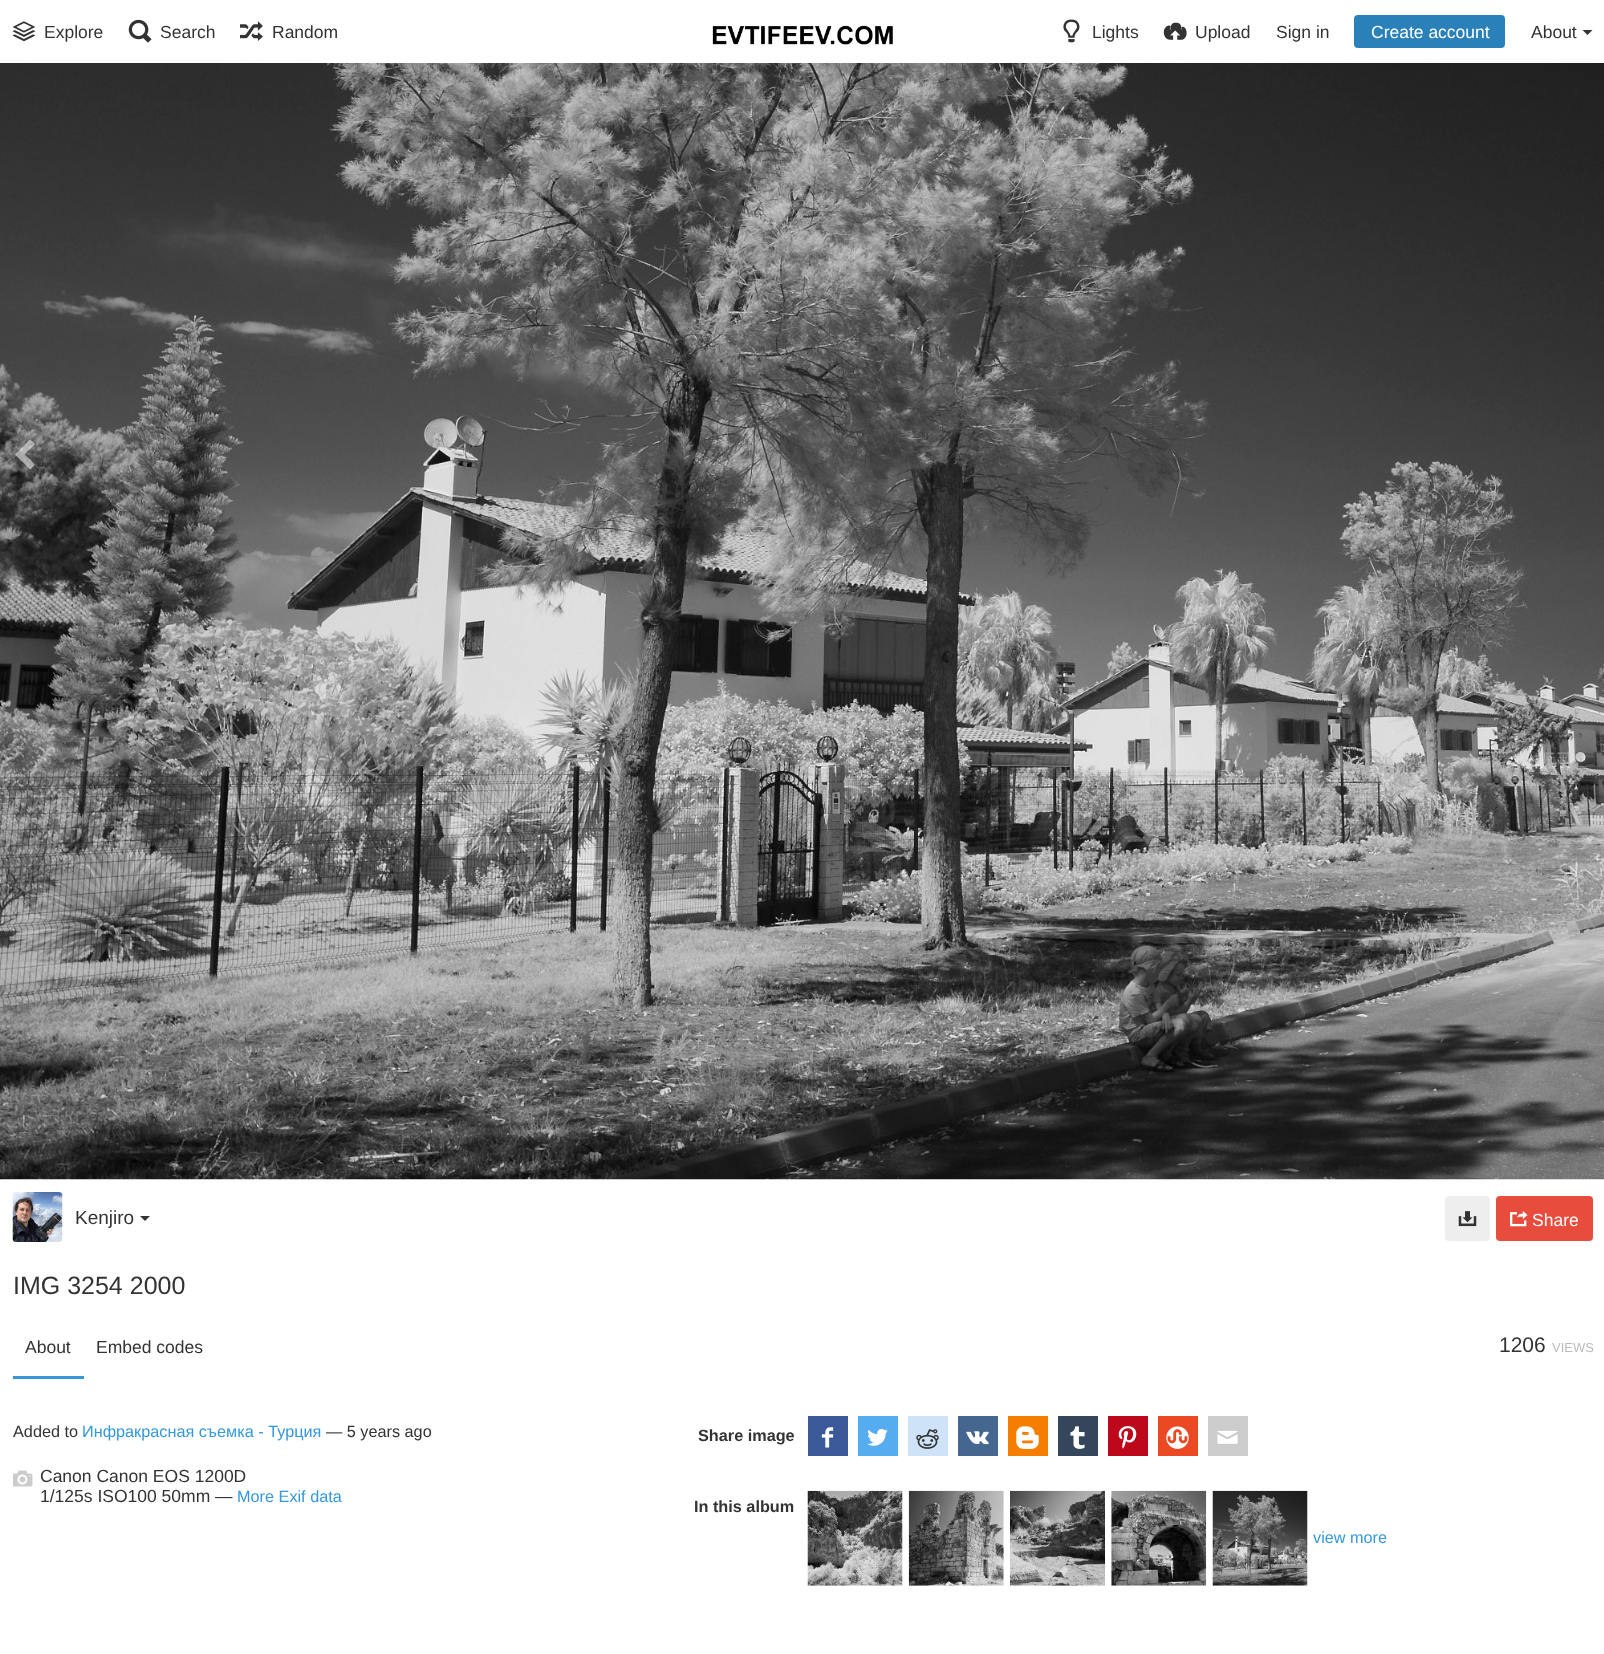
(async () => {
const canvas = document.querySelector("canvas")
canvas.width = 1604
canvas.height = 1654
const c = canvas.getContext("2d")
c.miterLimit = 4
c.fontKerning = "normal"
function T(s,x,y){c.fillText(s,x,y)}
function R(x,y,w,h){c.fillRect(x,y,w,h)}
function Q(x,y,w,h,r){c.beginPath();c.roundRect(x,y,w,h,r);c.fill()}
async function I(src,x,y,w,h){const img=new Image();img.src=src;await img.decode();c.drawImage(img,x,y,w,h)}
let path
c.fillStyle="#fff"
R(0,0,1604,1654)
await I("1.png",12,21,24,21)
c.font="17.5px Liberation Sans"
c.fillStyle="#333"
T("Explore",44,38)
await I("2.png",128,19,24,24)
T("Search",160,38)
await I("3.png",240,21,23,20)
T("Random",272,38)
await I("4.png",712,25,181,20)
await I("5.png",1063,19,17,24)
T("Lights",1092,38)
await I("6.png",1163,22,24,18)
T("Upload",1195,38)
T("Sign in",1276,38)
c.fillStyle="#2a80b9"
Q(1354,15,151,33,4)
c.fillStyle="#fff"
T("Create account",1371,38)
c.fillStyle="#333"
T("About",1531,38)
path = new Path2D("M1582.5 30h10l-5 5z")
c.fill(path)
await I("7.png",0,63,1604,1117)
c.fillStyle="#ffffff80"
path = new Path2D("M30 439.5l-15 15l15 15l5-5l-10.5-10l10.5-10.5z")
c.fill(path)
await I("8.png",12,1192,51,50)
c.font="19px Liberation Sans"
c.fillStyle="#333"
T("Kenjiro",75,1224)
path = new Path2D("M140 1216h10l-5 5z")
c.fill(path)
c.fillStyle="#eee"
Q(1445,1196,45,45,4)
await I("9.png",1458,1211,19,16)
c.fillStyle="#e84c3d"
Q(1496,1196,97,45,4)
await I("10.png",1510,1211,18,16)
c.font="17.5px Liberation Sans"
c.fillStyle="#fff"
T("Share",1532,1226)
c.font="25px Liberation Sans"
c.fillStyle="#333"
T("IMG 3254 2000",13,1294)
c.fillStyle="#3498db"
R(13,1376,71,3)
c.font="17.5px Liberation Sans"
c.fillStyle="#333"
T("About",25,1353)
T("Embed codes",96,1353)
c.font="21px Liberation Sans"
T("1206",1499,1352)
c.font="13px Liberation Sans"
c.fillStyle="#bbb"
T("VIEWS",1552,1352)
c.font="16.25px Liberation Sans"
c.fillStyle="#333"
T("Added to",13,1437)
c.fillStyle="#3498db"
T("Инфракрасная съемка - Турция",82,1437)
c.fillStyle="#333"
T("— 5 years ago",326,1437)
await I("11.png",13,1470,20,17)
c.font="17.5px Liberation Sans"
T("Canon Canon EOS 1200D",40,1482)
T("1/125s ISO100 50mm —",40,1502)
c.font="16.25px Liberation Sans"
c.fillStyle="#3498db"
T("More Exif data",237,1502)
c.font="bold 16.25px Liberation Sans"
c.fillStyle="#333"
T("Share image",698,1441)
c.fillStyle="#3b5998"
R(808,1416,40,40)
await I("12.png",821,1427,13,21)
c.fillStyle="#55acee"
R(858,1416,40,40)
await I("13.png",867,1429,21,17)
c.fillStyle="#cee3f8"
R(908,1416,40,40)
await I("14.png",916,1429,23,20)
c.fillStyle="#45668e"
R(958,1416,40,40)
await I("15.png",966,1431,23,14)
c.fillStyle="#f57d00"
R(1008,1416,40,40)
await I("16.png",1016,1426,23,23)
c.fillStyle="#35465c"
R(1058,1416,40,40)
await I("17.png",1070,1426,15,23)
c.fillStyle="#bd081c"
R(1108,1416,40,40)
await I("18.png",1118,1426,19,23)
c.fillStyle="#eb4924"
R(1158,1416,40,40)
await I("19.png",1166,1426,23,23)
c.fillStyle="#ccc"
R(1208,1416,40,40)
await I("20.png",1217,1430,21,14)
c.fillStyle="#333"
T("In this album",694,1512)
await I("21.png",807,1490,96,96)
await I("22.png",908,1490,96,96)
await I("23.png",1010,1490,95,96)
await I("24.png",1111,1490,96,96)
await I("25.png",1212,1490,96,96)
c.font="16.25px Liberation Sans"
c.fillStyle="#3498db"
T("view more",1313,1543)
})()
